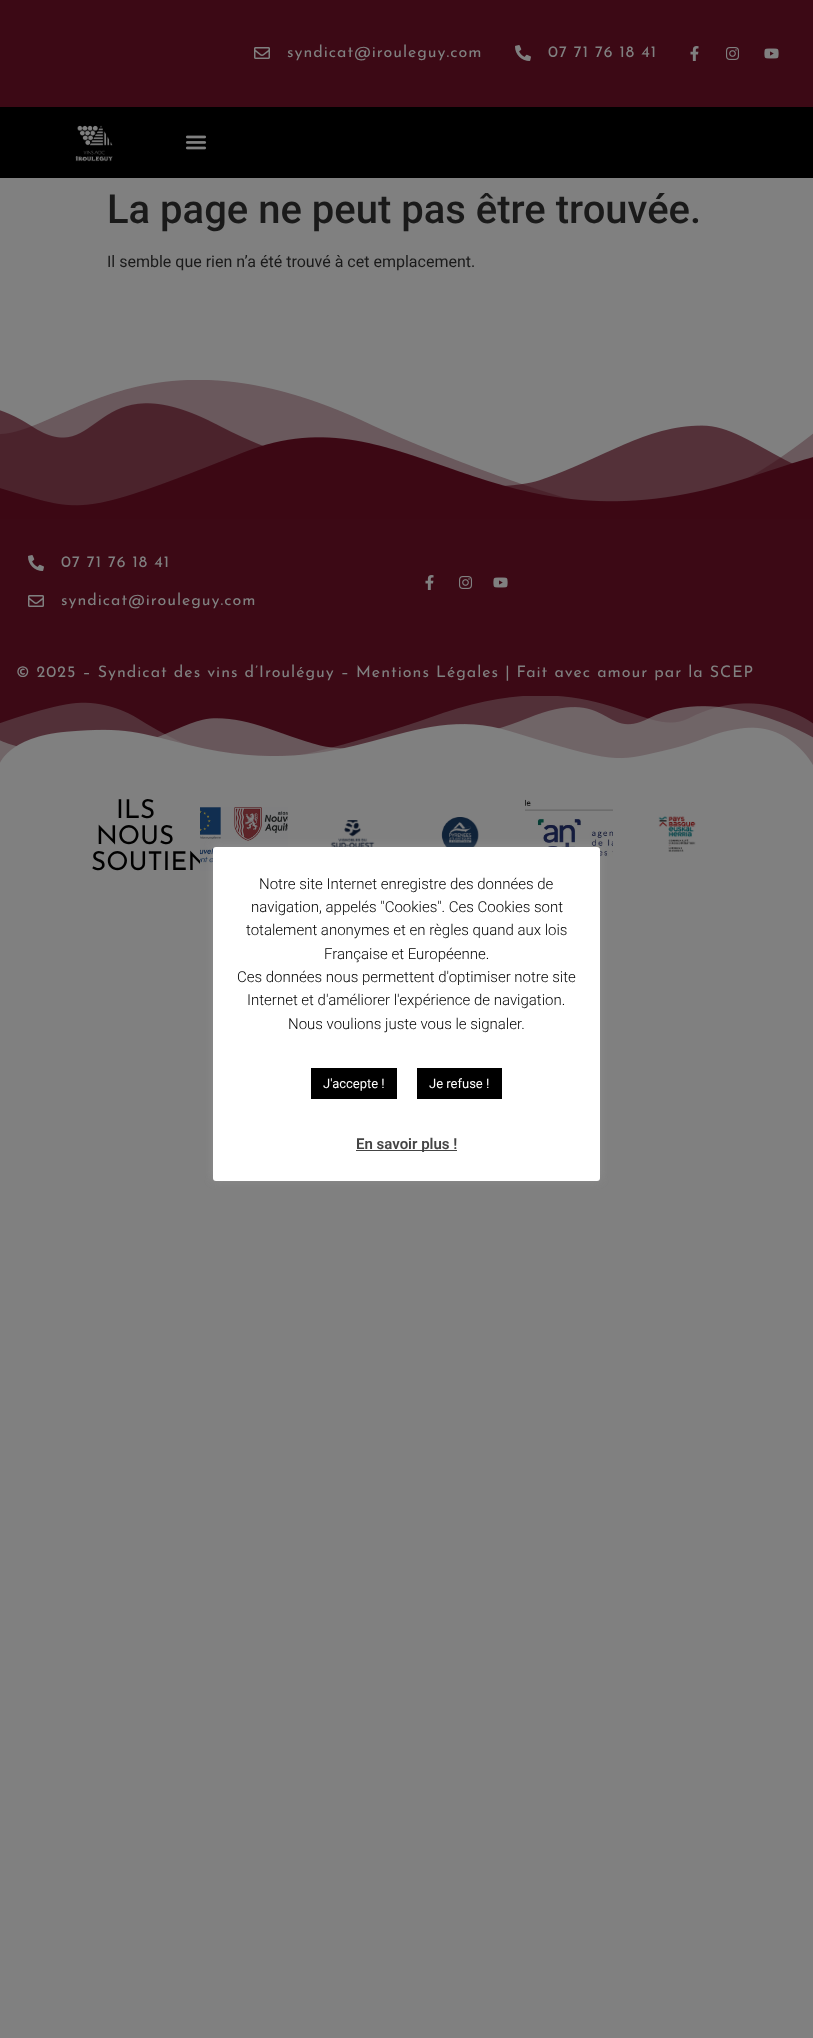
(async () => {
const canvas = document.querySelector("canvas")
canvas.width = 813
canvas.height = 2038
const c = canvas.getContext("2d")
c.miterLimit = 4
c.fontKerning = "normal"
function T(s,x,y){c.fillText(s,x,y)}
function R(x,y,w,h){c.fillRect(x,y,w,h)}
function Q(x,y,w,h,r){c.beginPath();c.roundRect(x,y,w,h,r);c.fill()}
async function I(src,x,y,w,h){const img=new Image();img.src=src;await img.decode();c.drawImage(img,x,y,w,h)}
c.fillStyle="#808080"
R(0,0,813,2038)
c.fillStyle="#3c0915"
R(0,0,813,107)
await I("1.png",254,47,16,12)
c.letterSpacing="1px"
c.font="16px Josefin Sans"
c.fillStyle="#808080"
T("syndicat@irouleguy.com",287,57)
await I("2.png",515,45,16,16)
T("07 71 76 18 41",548,57)
await I("3.png",690,46,9,15)
await I("4.png",726,47,14,13)
await I("5.png",764,48,15,11)
c.fillStyle="#000"
R(0,107,813,71)
await I("6.png",75,125,38,37)
await I("7.png",185,135,22,15)
c.letterSpacing="0px"
c.font="500 40px Roboto"
c.fillStyle="#1a1a1a"
T("La page ne peut pas être trouvée.",107,223)
c.font="16px Roboto"
T("Il semble que rien n’a été trouvé à cet emplacement.",107,267)
await I("8.png",0,380,813,139)
c.fillStyle="#3c0915"
R(0,519,813,246)
await I("2.png",28,555,16,16)
c.letterSpacing="1px"
c.font="16px Josefin Sans"
c.fillStyle="#808080"
T("07 71 76 18 41",61,567)
await I("1.png",28,595,16,12)
T("syndicat@irouleguy.com",61,605)
await I("3.png",425,575,9,15)
await I("4.png",459,576,14,13)
await I("5.png",493,577,15,11)
T("© 2025 – Syndicat des vins d’Irouléguy – Mentions Légales | Fait avec amour par la SCEP",16,677)
await I("9.png",0,696,813,69)
c.letterSpacing="0px"
c.font="26px Josefin Sans"
c.fillStyle="#000"
T("ILS",116,818)
T("NOUS",96,844)
T("SOUTIEN",91,870)
await I("10.png",200,807,88,64)
await I("11.png",330,820,45,27)
await I("12.png",441,817,38,30)
await I("13.png",525,799,88,72)
await I("14.png",658,816,38,36)
c.fillStyle="#acabab4d"
c.filter="blur(5px)"
c.beginPath()
c.roundRect(213,846,387,334,3)
c.fill()
c.filter="none"
c.fillStyle="#fff"
Q(213,847,387,334,3)
c.font="300 15px Roboto"
c.fillStyle="#000"
T("Notre site Internet enregistre des données de",259,889)
T("navigation, appelés \"Cookies\". Ces Cookies sont",251,912)
T("totalement anonymes et en règles quand aux lois",246,935)
T("Française et Européenne.",324,959)
T("Ces données nous permettent d'optimiser notre site",237,982)
T("Internet et d'améliorer l'expérience de navigation.",247,1005)
T("Nous voulions juste vous le signaler.",288,1029)
R(311,1068,86,31)
c.font="13px Roboto"
c.fillStyle="#fff"
T("J'accepte !",323,1088)
c.fillStyle="#000"
R(417,1068,85,31)
c.fillStyle="#fff"
T("Je refuse !",429,1088)
c.fillStyle="#444"
R(356,1150,101,1)
c.font="600 15px Roboto"
T("En savoir plus !",356,1149)
})()
